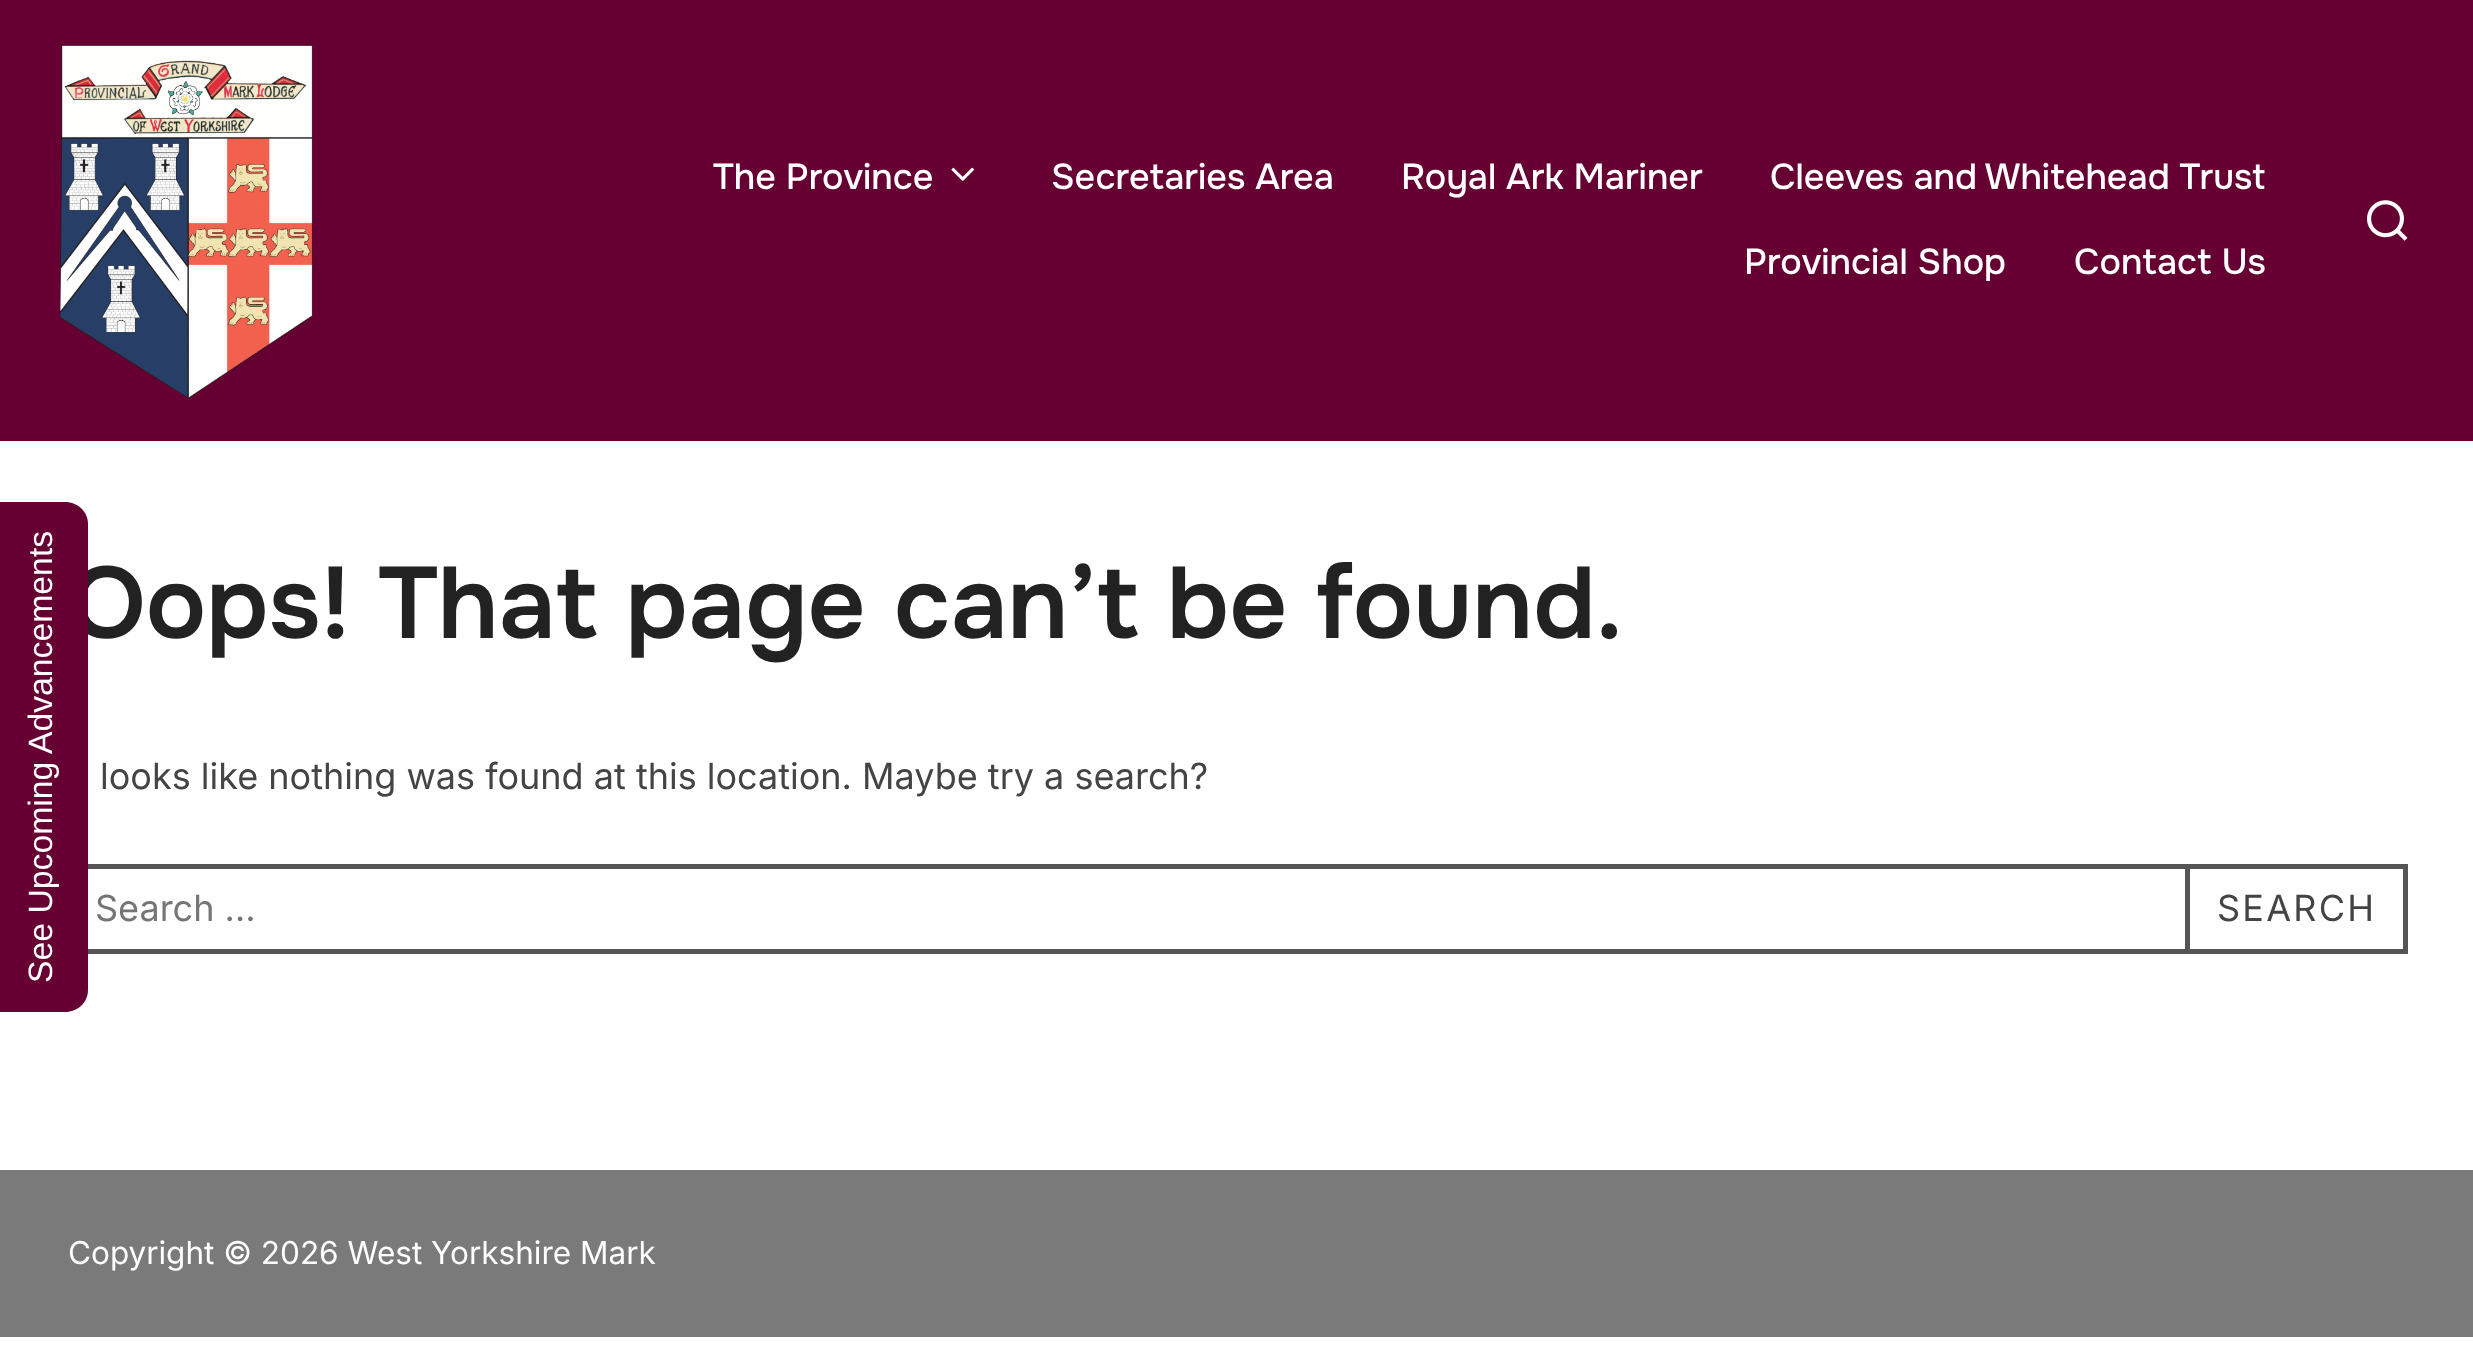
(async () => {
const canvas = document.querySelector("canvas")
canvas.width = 2473
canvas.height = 1345
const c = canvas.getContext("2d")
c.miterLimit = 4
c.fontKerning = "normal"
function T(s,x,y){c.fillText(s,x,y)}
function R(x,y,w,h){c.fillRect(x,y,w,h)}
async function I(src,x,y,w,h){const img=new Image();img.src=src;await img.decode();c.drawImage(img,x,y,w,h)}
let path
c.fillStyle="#fff"
R(0,0,2473,1345)
c.font="600 101.25px Onest"
c.fillStyle="#222"
T("Oops! That page can’t be found.",68,638)
c.strokeStyle="#565555"
c.lineWidth=5
c.strokeRect(70.5,866.5,2335,85)
c.fillStyle="#603"
path = new Path2D("M-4 1012v-510h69c13 0 23 10 23 22v466c0 12-10 22-23 22z")
c.fill(path)
c.font="33.75px Liberation Sans"
c.fillStyle="#fff"
c.save()
c.translate(52,983)
c.rotate(-90 * Math.PI / 180)
c.fillText("See Upcoming Advancements",0,0)
c.restore()
c.fillStyle="#603"
R(0,0,2473,441)
await I("1.png",59,45,254,353)
c.font="500 36px Onest"
c.fillStyle="#fff"
T("The Province",713,189)
await I("2.png",951,167,23,14)
T("Secretaries Area",1051,189)
T("Royal Ark Mariner",1401,189)
T("Cleeves and Whitehead Trust",1770,189)
T("Provincial Shop",1744,274)
T("Contact Us",2074,274)
await I("3.png",2367,200,41,41)
c.font="36px Inter"
c.fillStyle="#444"
T("looks like nothing was found at this location. Maybe try a search?",100,789)
c.fillStyle="#757575"
T("Search …",95,921)
c.strokeRect(2187.5,866.5,218,85)
c.letterSpacing="2.25px"
c.fillStyle="#444"
T("SEARCH",2217,921)
c.fillStyle="#7a7a7a"
R(0,1170,2473,167)
c.letterSpacing="0px"
c.font="31.5px Inter"
c.fillStyle="#fff"
T("Copyright © 2026 West Yorkshire Mark",68,1264)
})()
